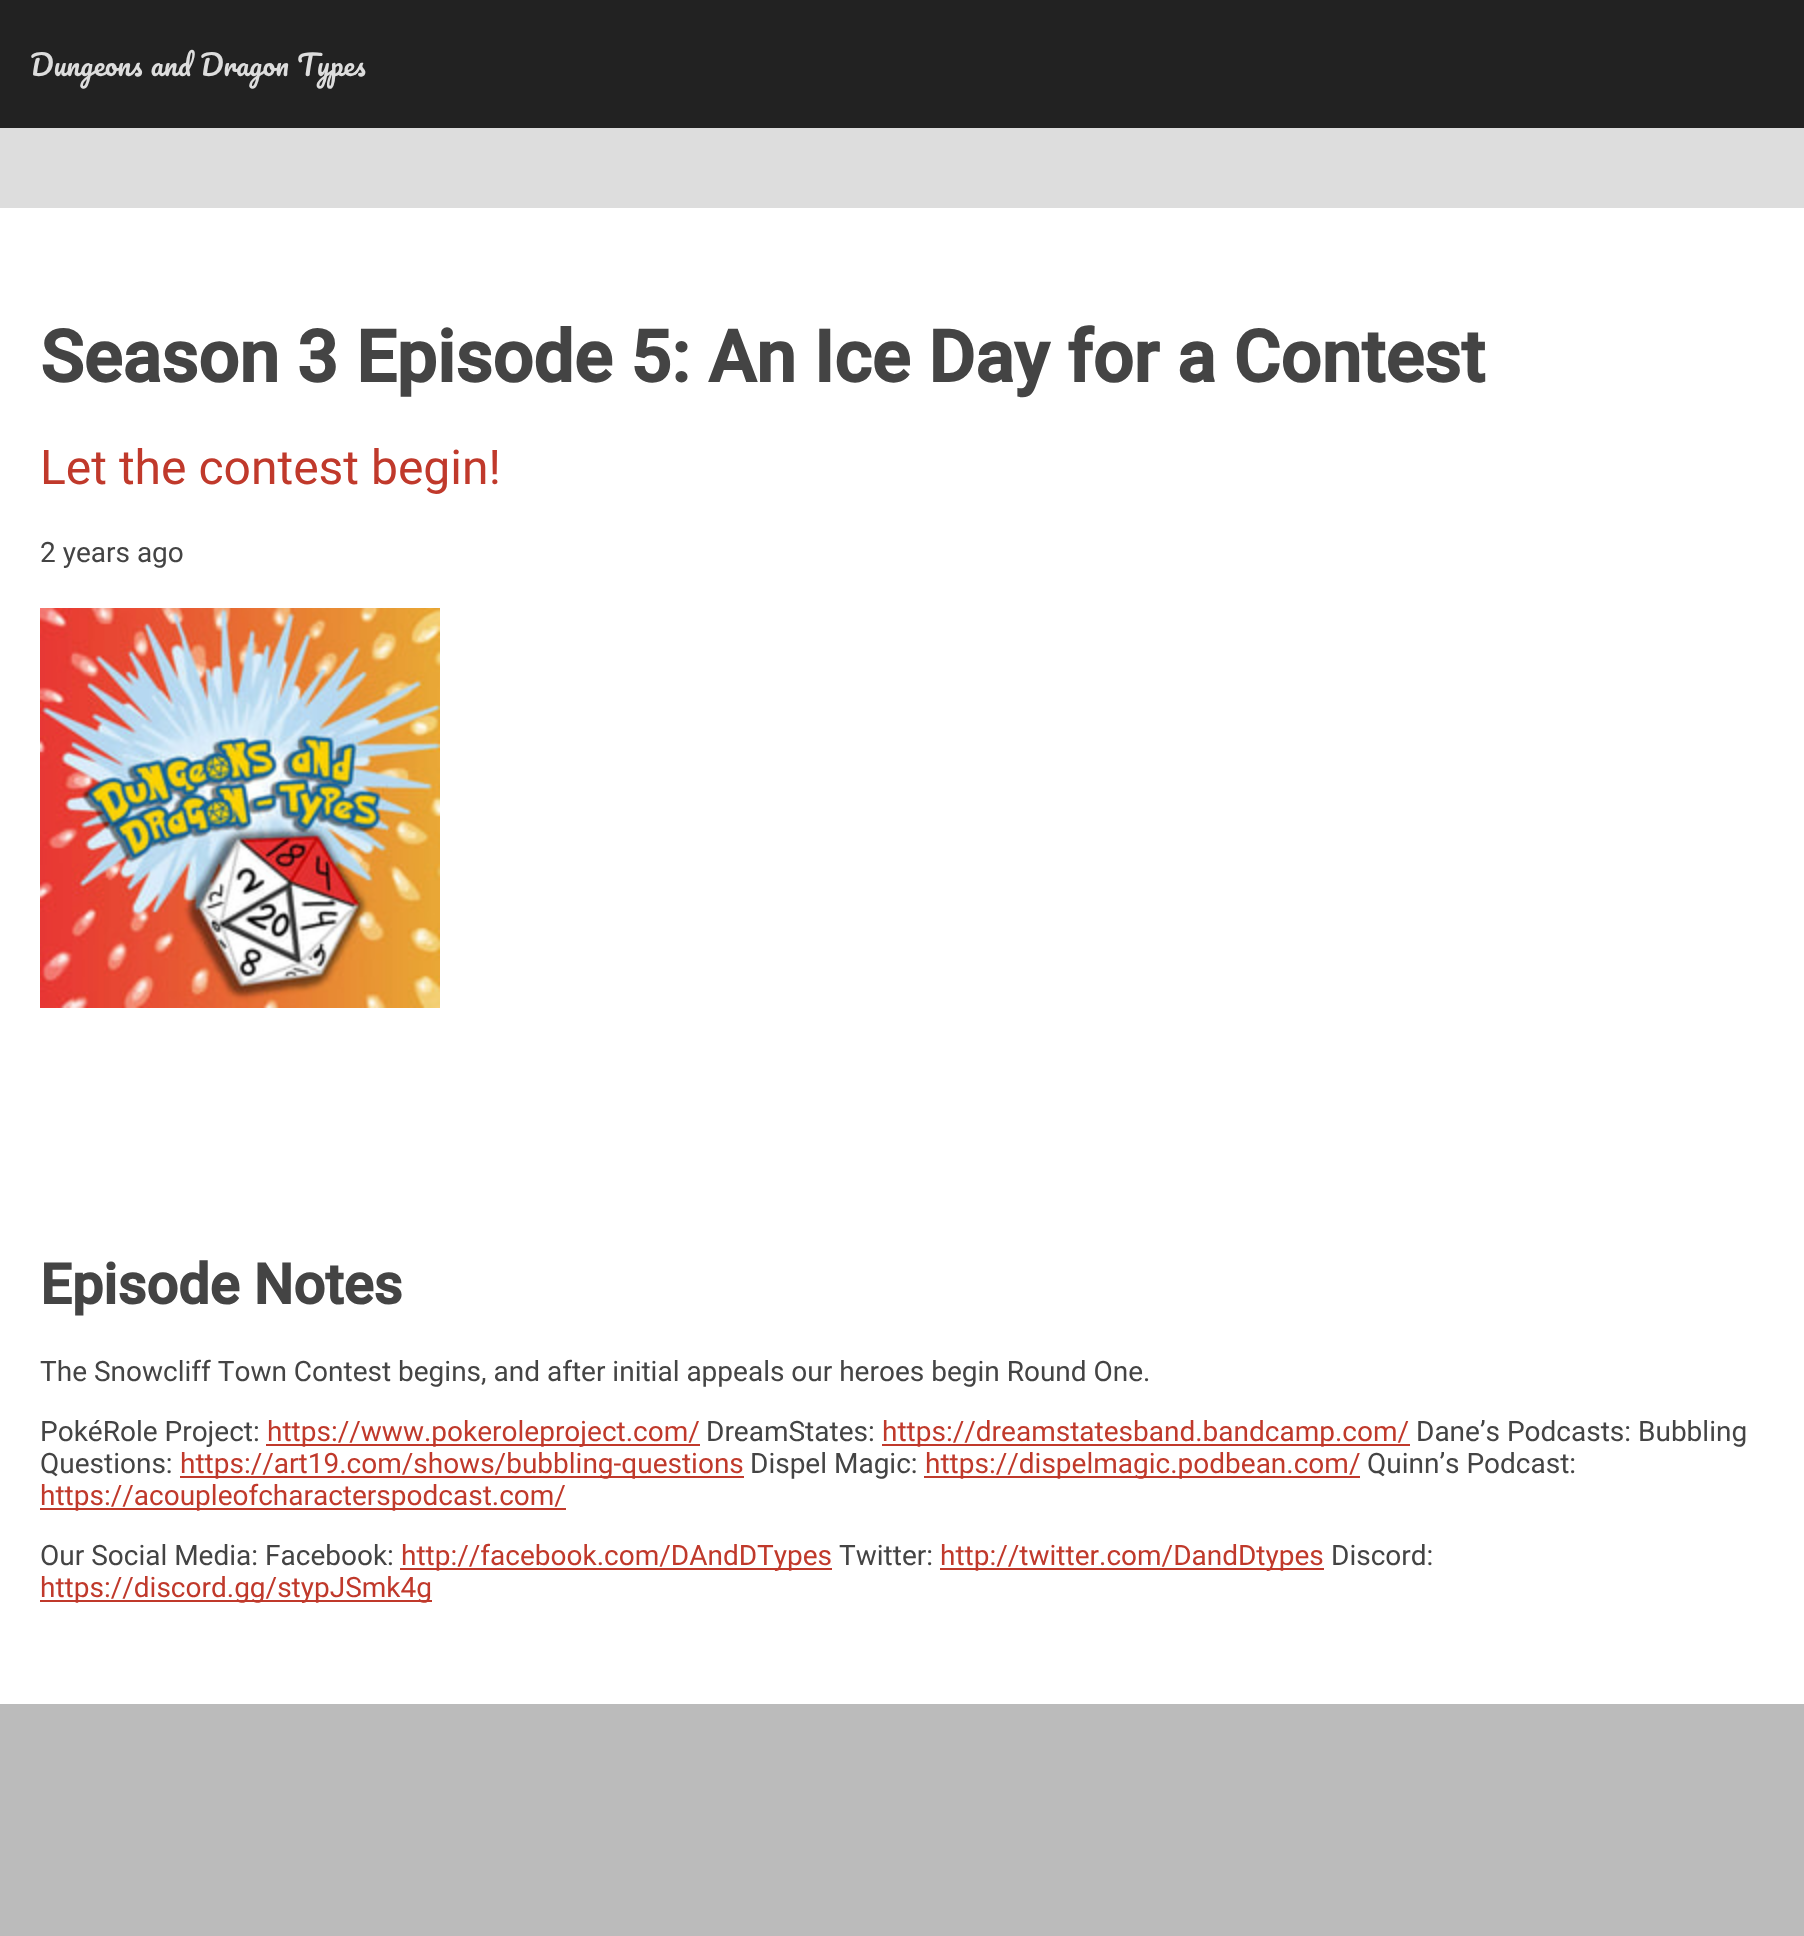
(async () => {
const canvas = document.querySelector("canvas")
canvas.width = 1804
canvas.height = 1936
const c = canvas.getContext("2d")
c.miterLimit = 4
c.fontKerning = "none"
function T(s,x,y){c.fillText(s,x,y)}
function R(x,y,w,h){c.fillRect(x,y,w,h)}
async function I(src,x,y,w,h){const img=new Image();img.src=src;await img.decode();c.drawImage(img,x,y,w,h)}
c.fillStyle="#ddd"
R(0,0,1804,1936)
c.fillStyle="#222"
R(0,0,1804,128)
c.wordSpacing="1px"
c.font="28px Pacifico"
c.fillStyle="#ddd"
T("Dungeons and Dragon Types",30,76)
c.fillStyle="#fff"
R(0,208,1804,1496)
c.wordSpacing="0px"
c.font="bold 72px Roboto"
c.fillStyle="#444"
T("Season 3 Episode 5: An Ice Day for a Contest",40,382)
c.font="48px Roboto"
c.fillStyle="#c0392b"
T("Let the contest begin!",40,484)
c.font="28px Roboto"
c.fillStyle="#444"
T("2 years ago",40,562)
await I("1.png",40,608,400,400)
c.font="bold 56px Roboto"
T("Episode Notes",40,1304)
c.font="28px Roboto"
T("The Snowcliff Town Contest begins, and after initial appeals our heroes begin Round One.",40,1381)
T("PokéRole Project:",40,1441)
c.fillStyle="#c0392b"
R(266,1444,434,2)
T("https://www.pokeroleproject.com/",267,1441)
c.fillStyle="#444"
T("DreamStates:",706,1441)
c.fillStyle="#c0392b"
R(882,1444,528,2)
T("https://dreamstatesband.bandcamp.com/",882,1441)
c.fillStyle="#444"
T("Dane’s Podcasts: Bubbling",1416,1441)
T("Questions:",40,1473)
c.fillStyle="#c0392b"
R(180,1476,564,2)
T("https://art19.com/shows/bubbling-questions",180,1473)
c.fillStyle="#444"
T("Dispel Magic:",750,1473)
c.fillStyle="#c0392b"
R(924,1476,436,2)
T("https://dispelmagic.podbean.com/",925,1473)
c.fillStyle="#444"
T("Quinn’s Podcast:",1367,1473)
c.fillStyle="#c0392b"
R(40,1508,526,2)
T("https://acoupleofcharacterspodcast.com/",40,1505)
c.fillStyle="#444"
T("Our Social Media: Facebook:",40,1565)
c.fillStyle="#c0392b"
R(400,1568,432,2)
T("http://facebook.com/DAndDTypes",401,1565)
c.fillStyle="#444"
T("Twitter:",839,1565)
c.fillStyle="#c0392b"
R(940,1568,384,2)
T("http://twitter.com/DandDtypes",940,1565)
c.fillStyle="#444"
T("Discord:",1331,1565)
c.fillStyle="#c0392b"
R(40,1600,392,2)
T("https://discord.gg/stypJSmk4g",40,1597)
c.fillStyle="#bbb"
R(0,1704,1804,232)
})()
